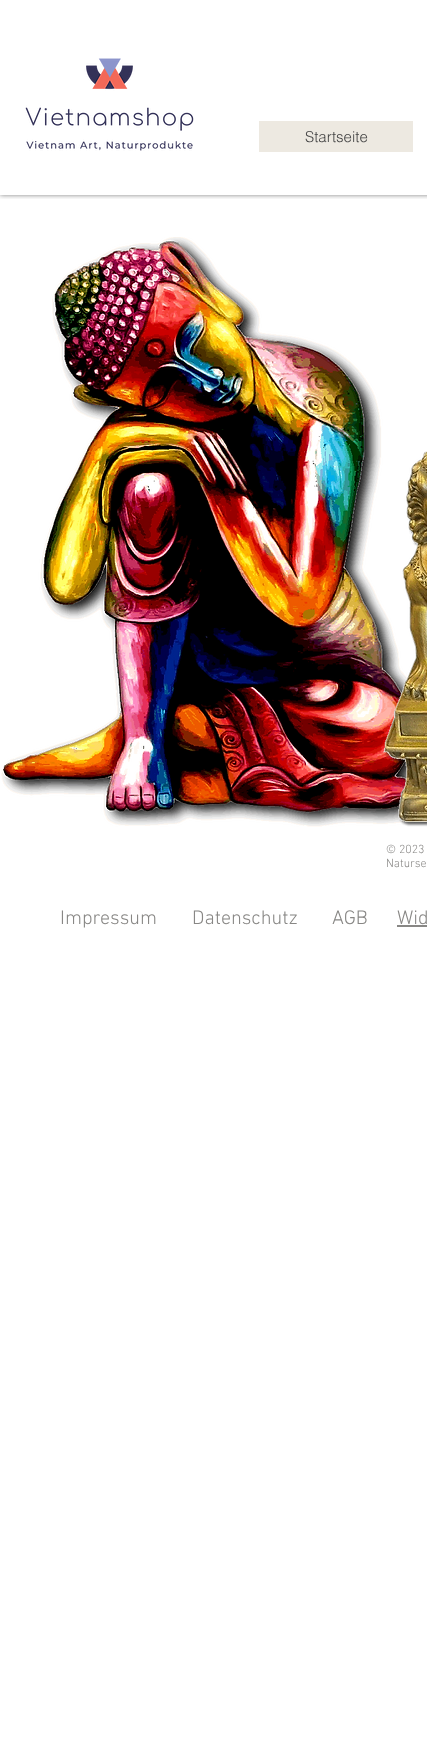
(async () => {
const canvas = document.querySelector("canvas")
canvas.width = 427
canvas.height = 1750
const c = canvas.getContext("2d")
c.miterLimit = 4
c.fontKerning = "normal"
function T(s,x,y){c.fillText(s,x,y)}
function R(x,y,w,h){c.fillRect(x,y,w,h)}
async function I(src,x,y,w,h){const img=new Image();img.src=src;await img.decode();c.drawImage(img,x,y,w,h)}
c.fillStyle="#fff"
R(0,0,427,1750)
c.save()
c.beginPath()
c.rect(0,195,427,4)
c.clip()
c.fillStyle="#00000080"
c.filter="blur(2.5px)"
c.beginPath()
c.rect(0,0,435,195)
c.fill()
c.filter="none"
c.restore()
await I("1.png",25,58,169,93)
c.fillStyle="#ede9e1"
R(259,121,154,31)
c.font="300 15px helvetica"
c.fillStyle="#444"
T("Startseite",305,142)
await I("2.png",1,237,408,590)
await I("3.png",383,451,44,376)
c.font="300 12px 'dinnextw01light'"
c.fillStyle="#888785"
T("© 2023",386,853)
T("Naturse",386,867)
c.font="300 20px 'dinnextw01light'"
T("Impressum",60,924)
T("Datenschutz",192,924)
T("AGB",332,924)
T("Wid",397,924)
R(397,925,30,2)
})()
